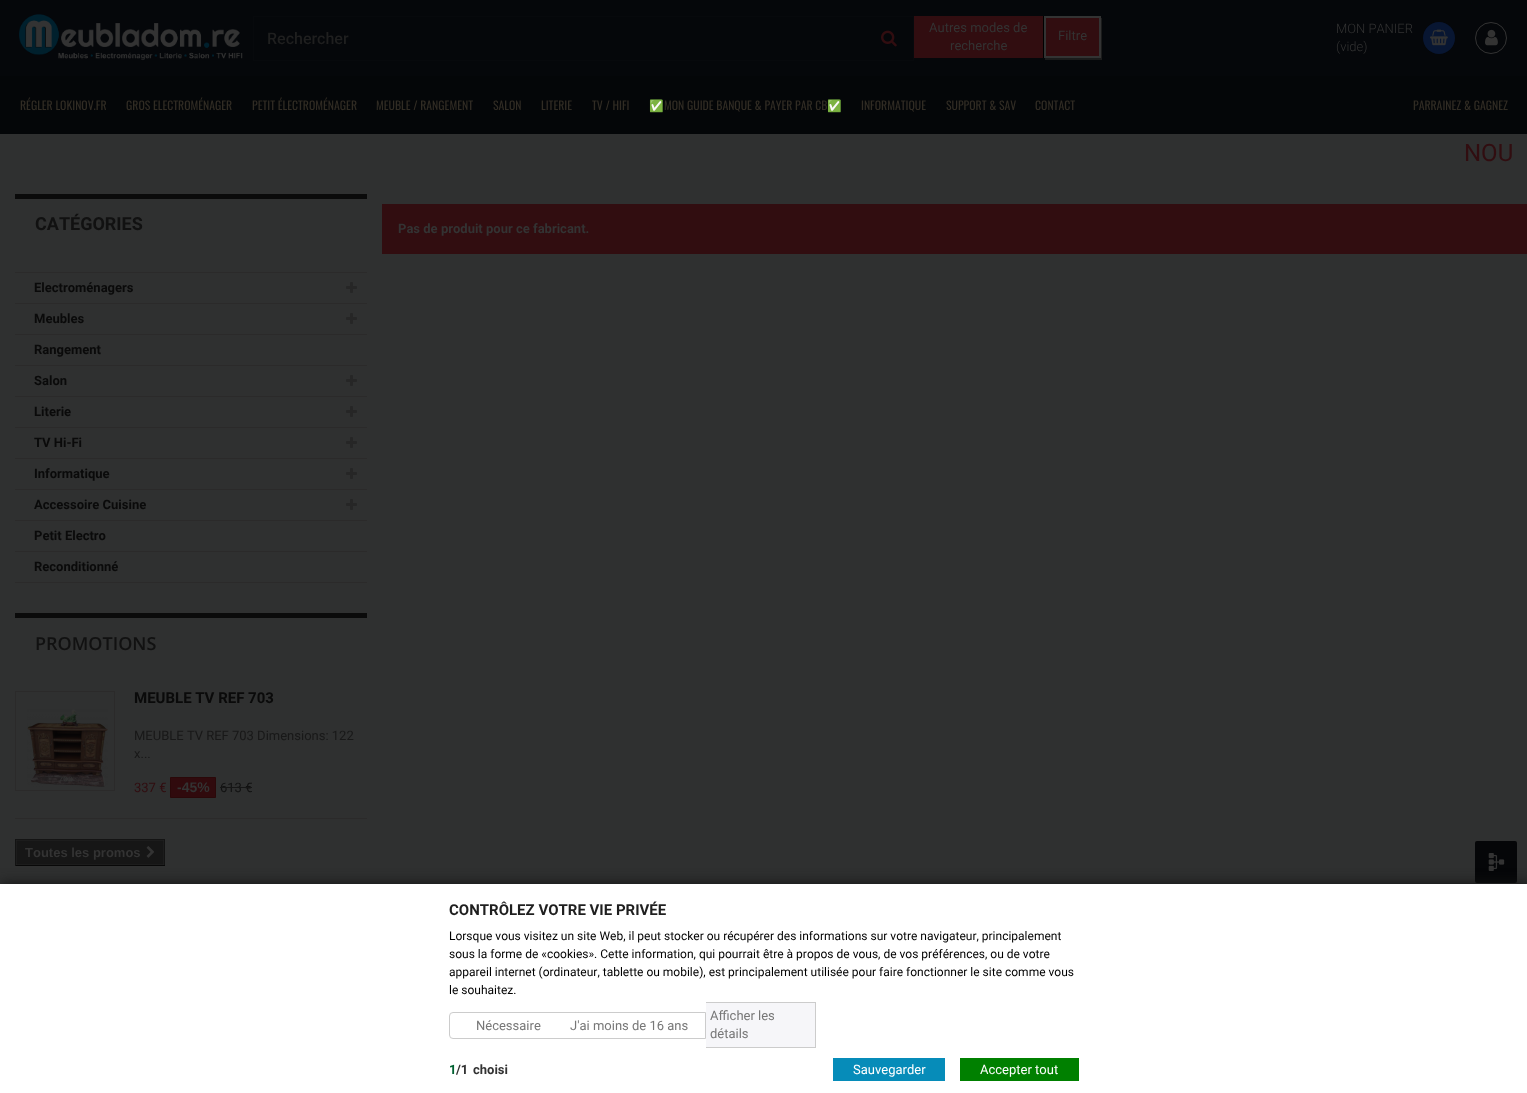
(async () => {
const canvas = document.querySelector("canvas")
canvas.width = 1527
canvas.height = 1093
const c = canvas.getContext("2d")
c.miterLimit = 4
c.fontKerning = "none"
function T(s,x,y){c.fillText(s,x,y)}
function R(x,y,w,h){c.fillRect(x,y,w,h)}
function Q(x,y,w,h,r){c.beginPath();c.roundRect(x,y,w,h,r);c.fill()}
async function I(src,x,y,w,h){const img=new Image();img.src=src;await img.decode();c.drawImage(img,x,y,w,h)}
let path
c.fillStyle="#2f3030"
R(0,0,1527,1093)
c.fillStyle="#05070a"
R(0,0,1527,76)
await I("1.png",19,14,224,47)
c.strokeStyle="#3333330f"
c.strokeRect(253.5,16.5,660,44)
c.font="500 16px Roboto"
c.fillStyle="#1f1f1f"
T("Rechercher",267,44)
await I("2.png",881,30,16,17)
c.fillStyle="#310d10"
R(914,16,185,42)
c.fillStyle="#000"
R(1043,16,1,42)
c.font="13px Roboto"
c.fillStyle="#333"
T("Autres modes de",929,32)
T("recherche",950,50)
c.fillStyle="#1b1b1b"
path = new Path2D("M1045 58v2h57v-42h-1v40z")
c.fill(path)
c.strokeStyle="#333"
c.lineWidth=2
c.strokeRect(1045,17,55,40)
c.fillStyle="#333"
T("Filtre",1058,40)
c.font="300 13px Roboto"
T("MON PANIER",1336,33)
T("(vide)",1336,51)
c.fillStyle="#081632"
c.beginPath()
c.arc(1439,38,16,0,7)
c.fill()
await I("3.png",1430,29,18,17)
c.beginPath()
c.arc(1491,38,15.5,0,7)
c.lineWidth=1
c.stroke()
await I("4.png",1485,29,13,17)
c.fillStyle="#040608"
R(0,76,1527,58)
c.font="11.75px Oswald"
c.fillStyle="#312c24"
T("RÉGLER LOKINOV.FR",20,110)
T("GROS ELECTROMÉNAGER",126,110)
T("PETIT ÉLECTROMÉNAGER",252,110)
T("MEUBLE / RANGEMENT",376,110)
T("SALON",493,110)
T("LITERIE",541,110)
T("TV / HIFI",592,110)
c.font="11.75px Noto Color Emoji"
T("✅",649,110)
c.font="11.75px Oswald"
T("MON GUIDE BANQUE & PAYER PAR CB",664,110)
c.font="11.75px Noto Color Emoji"
T("✅",827,110)
c.font="11.75px Oswald"
T("INFORMATIQUE",861,110)
T("SUPPORT & SAV",946,110)
T("CONTACT",1035,110)
T("PARRAINEZ & GAGNEZ",1413,110)
c.font="24px Roboto"
c.fillStyle="#310d10"
T("NOU",1464,161)
c.fillStyle="#0a0a0a"
R(15,194,352,5)
c.font="bold 18px Roboto"
c.fillStyle="#111"
T("CATÉGORIES",35,230)
c.fillStyle="#2b2a2a"
R(15,272,352,1)
R(15,303,352,1)
c.font="bold 13px Roboto"
c.fillStyle="#0a0a0a"
T("Electroménagers",34,292)
await I("5.png",346,282,11,11)
c.fillStyle="#2b2a2a"
R(15,334,352,1)
c.fillStyle="#0a0a0a"
T("Meubles",34,323)
await I("5.png",346,313,11,11)
c.fillStyle="#2b2a2a"
R(15,365,352,1)
c.fillStyle="#0a0a0a"
T("Rangement",34,354)
c.fillStyle="#2b2a2a"
R(15,396,352,1)
c.fillStyle="#0a0a0a"
T("Salon",34,385)
await I("5.png",346,375,11,11)
c.fillStyle="#2b2a2a"
R(15,427,352,1)
c.fillStyle="#0a0a0a"
T("Literie",34,416)
await I("5.png",346,406,11,11)
c.fillStyle="#2b2a2a"
R(15,458,352,1)
c.fillStyle="#0a0a0a"
T("TV Hi-Fi",34,447)
await I("5.png",346,437,11,11)
c.fillStyle="#2b2a2a"
R(15,489,352,1)
c.fillStyle="#0a0a0a"
T("Informatique",34,478)
await I("5.png",346,468,11,11)
c.fillStyle="#2b2a2a"
R(15,520,352,1)
c.fillStyle="#0a0a0a"
T("Accessoire Cuisine",34,509)
await I("5.png",346,499,11,11)
c.fillStyle="#2b2a2a"
R(15,551,352,1)
c.fillStyle="#0a0a0a"
T("Petit Electro",34,540)
c.fillStyle="#2b2a2a"
R(15,582,352,1)
c.fillStyle="#0a0a0a"
T("Reconditionné",34,571)
R(15,613,352,5)
c.font="600 18px Open Sans"
c.fillStyle="#111"
T("PROMOTIONS",35,650)
c.fillStyle="#2b2a2a"
R(15,818,352,1)
c.strokeStyle="#2b2a2a"
c.strokeRect(15.5,691.5,99,99)
await I("6.png",27,709,81,78)
c.font="bold 15px Roboto"
c.fillStyle="#0a0a0a"
T("MEUBLE TV REF 703",134,703)
c.font="13px Roboto"
c.fillStyle="#181818"
T("MEUBLE TV REF 703 Dimensions: 122",134,740)
T("x...",134,758)
c.fillStyle="#310d10"
T("337 €",134,792)
c.fillStyle="#300a0d"
c.beginPath()
c.rect(170.5,777.5,45,20)
c.fill()
c.strokeStyle="#2a0809"
c.stroke()
c.font="bold 14px Liberation Sans"
c.fillStyle="#333"
T("-45%",177,792)
c.font="13px Roboto"
c.fillStyle="#111"
T("613 €",220,792)
c.fillStyle="#161616"
R(220,787,32,1)
c.fillStyle="#141414"
R(15,839,150,1)
c.fillStyle="#131313"
R(164,839,1,27)
c.fillStyle="#080808"
R(15,865,150,1)
c.fillStyle="#131313"
R(15,839,1,27)
c.fillStyle="#161616"
c.beginPath()
c.rect(16.5,840.5,147,24)
c.fill()
c.strokeStyle="#1c1c1c"
c.stroke()
c.font="bold 13px Liberation Sans"
c.fillStyle="#333"
T("Toutes les promos",25,857)
await I("7.png",146,846,9,12)
c.fillStyle="#310d10"
R(382,204,1145,50)
c.font="bold 13px Roboto"
c.fillStyle="#333"
T("Pas de produit pour ce fabricant.",398,233)
c.fillStyle="#050608"
Q(1475,841,42,42,2)
await I("8.png",1488,853,17,18)
c.fillStyle="#121212"
c.filter="blur(7px)"
c.beginPath()
c.rect(0,884,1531,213)
c.fill()
c.filter="none"
c.fillStyle="#fff"
R(0,884,1527,209)
c.font="bold 15px Roboto"
c.fillStyle="#1f1f1f"
T("CONTRÔLEZ VOTRE VIE PRIVÉE",449,915)
c.font="12px Roboto"
c.fillStyle="#000"
T("Lorsque vous visitez un site Web, il peut stocker ou récupérer des informations sur votre navigateur, principalement",449,940)
T("sous la forme de «cookies». Cette information, qui pourrait être à propos de vous, de vos préférences, ou de votre",449,958)
T("appareil internet (ordinateur, tablette ou mobile), est principalement utilisée pour faire fonctionner le site comme vous",449,976)
T("le souhaitez.",449,994)
c.beginPath()
c.roundRect(449.5,1012.5,256,26,[3.5,0,0,3.5])
c.strokeStyle="#ccc"
c.stroke()
c.font="13px Roboto"
c.fillStyle="#777"
T("Nécessaire",476,1030)
T("J'ai moins de 16 ans",570,1030)
c.fillStyle="#f6f6f9"
R(706,1003,109,44)
c.fillStyle="#ccc"
R(706,1002,110,1)
R(815,1002,1,46)
R(706,1047,110,1)
c.fillStyle="#777"
T("Afficher les",710,1020)
T("détails",710,1038)
c.font="bold 13px Roboto"
c.fillStyle="#006131"
T("1",449,1074)
c.fillStyle="#333"
T("/1",456,1074)
T("choisi",473,1074)
c.fillStyle="#068cb9"
R(833,1058,112,23)
c.font="13px Roboto"
c.fillStyle="#fff"
T("Sauvegarder",853,1074)
c.fillStyle="#008000"
R(960,1058,119,23)
c.fillStyle="#fff"
T("Accepter tout",980,1074)
})()
